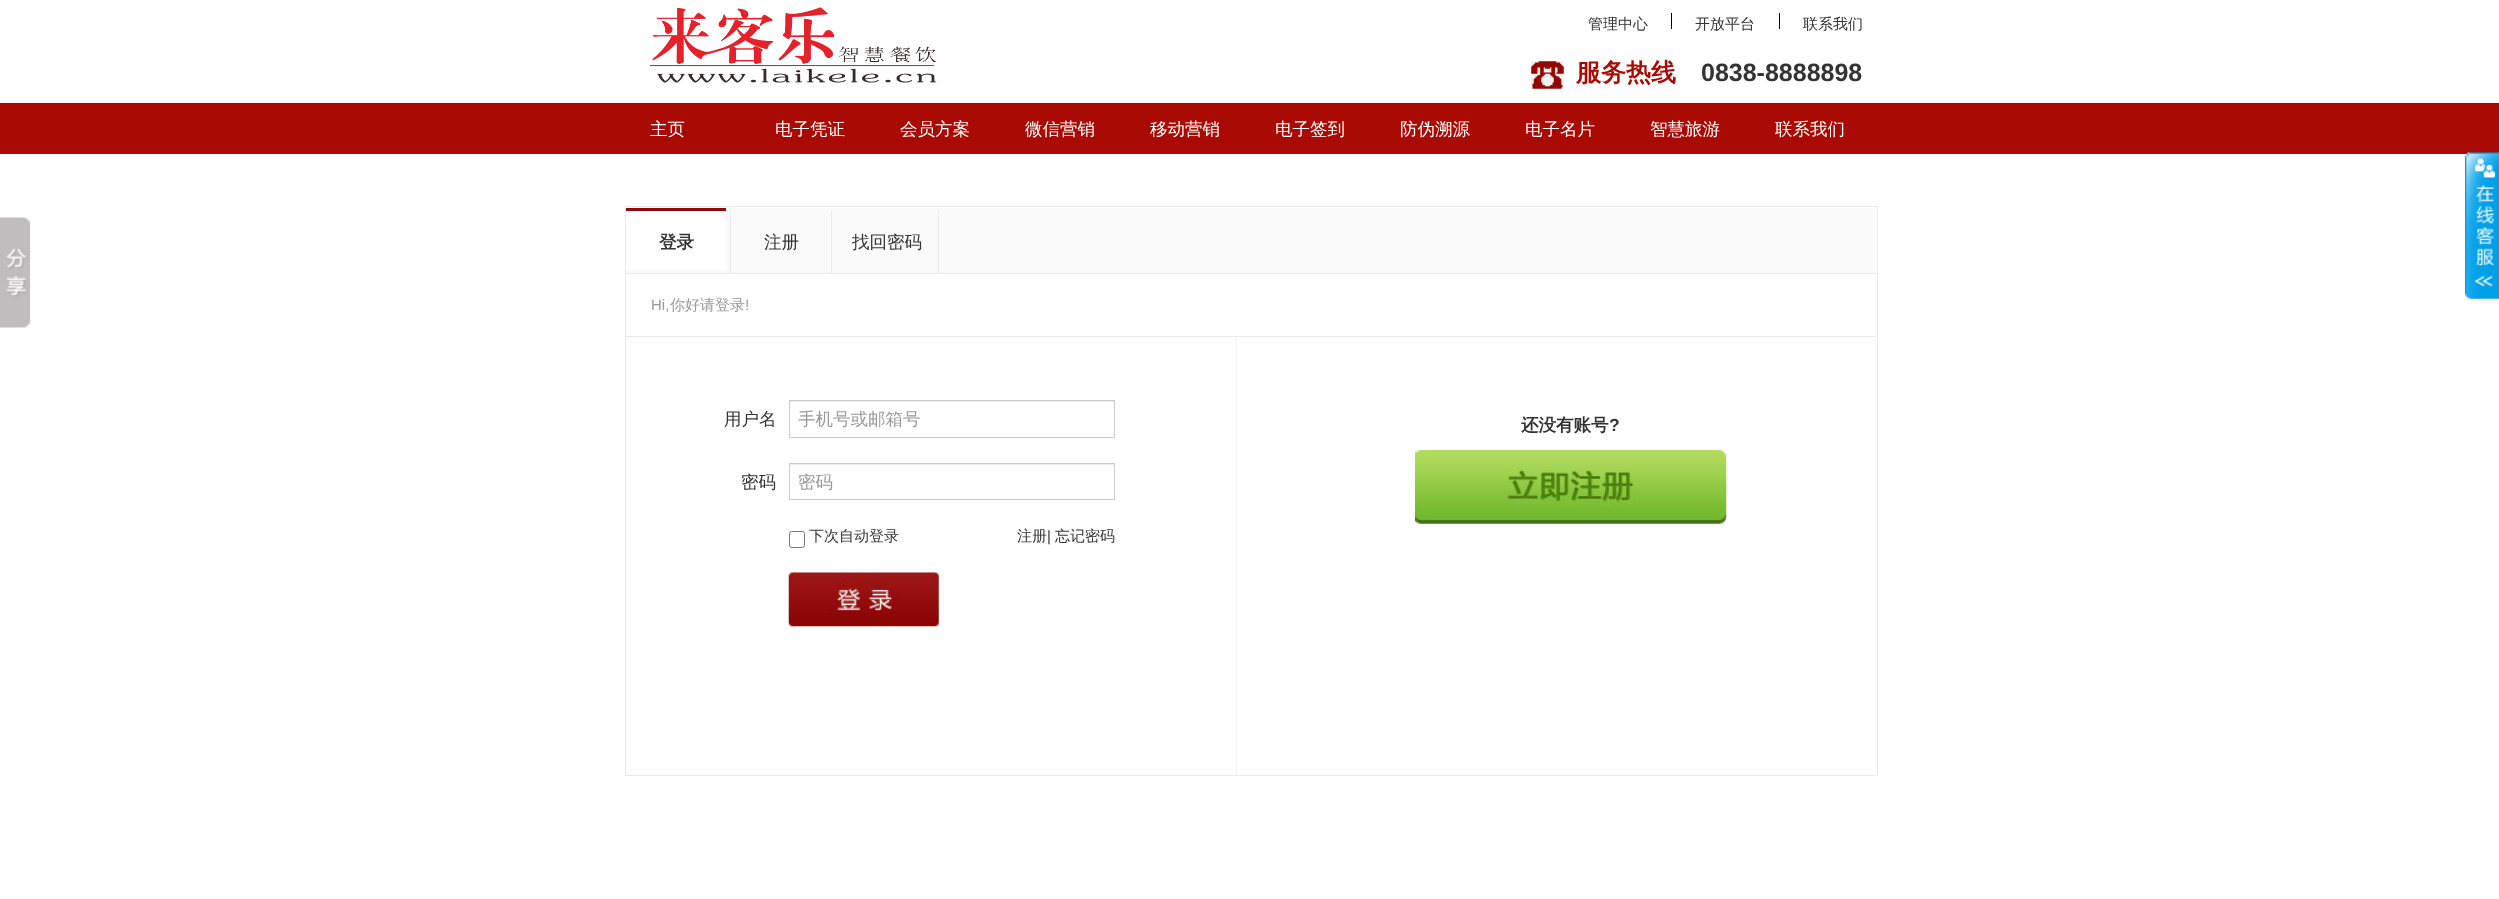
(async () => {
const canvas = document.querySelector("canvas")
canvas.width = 2499
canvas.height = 899
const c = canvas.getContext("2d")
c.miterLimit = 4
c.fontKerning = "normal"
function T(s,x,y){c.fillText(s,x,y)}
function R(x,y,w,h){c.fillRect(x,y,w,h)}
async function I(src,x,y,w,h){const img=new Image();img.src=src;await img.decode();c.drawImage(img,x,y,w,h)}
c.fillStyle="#fff"
R(0,0,2499,899)
c.fillStyle="#940d09"
R(0,103,2499,1)
await I("1.png",650,7,287,76)
c.font="500 15px WenQuanYi Zen Hei"
c.fillStyle="#333"
T("管理中心",1588,29)
c.fillStyle="#000"
R(1671,13,1,16)
c.fillStyle="#333"
T("开放平台",1695,29)
c.fillStyle="#000"
R(1779,13,1,16)
c.fillStyle="#333"
T("联系我们",1803,29)
await I("2.png",1531,61,33,28)
c.font="bold 25px WenQuanYi Zen Hei"
c.fillStyle="#a90a03"
T("服务热线",1576,81)
c.font="bold 25px Liberation Sans"
c.fillStyle="#333"
T("0838-8888898",1701,81)
c.fillStyle="#a90a03"
R(0,104,2499,50)
c.font="500 17.5px WenQuanYi Zen Hei"
c.fillStyle="#fff"
T("主页",650,135)
T("电子凭证",775,135)
T("会员方案",900,135)
T("微信营销",1025,135)
T("移动营销",1150,135)
T("电子签到",1275,135)
T("防伪溯源",1400,135)
T("电子名片",1525,135)
T("智慧旅游",1650,135)
T("联系我们",1775,135)
await I("3.png",0,217,30,111)
c.strokeStyle="#eaeaea"
c.strokeRect(625.5,206.5,1252,569)
c.fillStyle="#fafafa"
R(626,208,1250,65)
c.fillStyle="#eaeaea"
R(626,273,1250,1)
c.fillStyle="#fff"
R(626,211,100,59)
c.fillStyle="#960405"
R(626,208,100,3)
c.font="bold 17.5px WenQuanYi Zen Hei"
c.fillStyle="#333"
T("登录",659,248)
c.fillStyle="#eaeaea"
R(831,210,1,63)
R(730,210,1,63)
c.font="500 17.5px WenQuanYi Zen Hei"
c.fillStyle="#333"
T("注册",764,248)
c.fillStyle="#eaeaea"
R(938,210,1,63)
c.fillStyle="#333"
T("找回密码",852,248)
c.fillStyle="#eaeaea"
R(626,336,1250,1)
c.font="15px Liberation Sans"
c.fillStyle="#999"
T("Hi,",651,310)
c.font="500 15px WenQuanYi Zen Hei"
T("你好请登录",670,310)
c.font="15px Liberation Sans"
T("!",745,310)
c.fillStyle="#f4f4f4"
R(1236,338,1,437)
c.font="500 17.5px WenQuanYi Zen Hei"
c.fillStyle="#333"
T("用户名",724,425)
c.fillStyle="#ececec"
R(790,401,324,1)
c.strokeStyle="#ccc"
c.strokeRect(789.5,400.5,325,37)
c.fillStyle="#999"
T("手机号或邮箱号",798,425)
c.fillStyle="#333"
T("密码",741,488)
c.fillStyle="#ececec"
R(790,464,324,1)
c.strokeRect(789.5,463.5,325,36)
c.fillStyle="#999"
T("密码",798,488)
c.beginPath()
c.roundRect(789.5,531.5,15,16,2)
c.strokeStyle="#767676"
c.stroke()
c.font="500 15px WenQuanYi Zen Hei"
c.fillStyle="#333"
T("下次自动登录",809,541)
T("注册",1017,541)
c.font="15px Liberation Sans"
T("|",1047,541)
c.font="500 15px WenQuanYi Zen Hei"
T("忘记密码",1055,541)
await I("4.png",788,572,151,55)
c.font="bold 17.5px WenQuanYi Zen Hei"
T("还没有账号",1521,431)
c.font="bold 17.5px Liberation Sans"
T("?",1609,431)
await I("5.png",1415,450,312,74)
await I("6.png",2465,152,34,147)
})()
